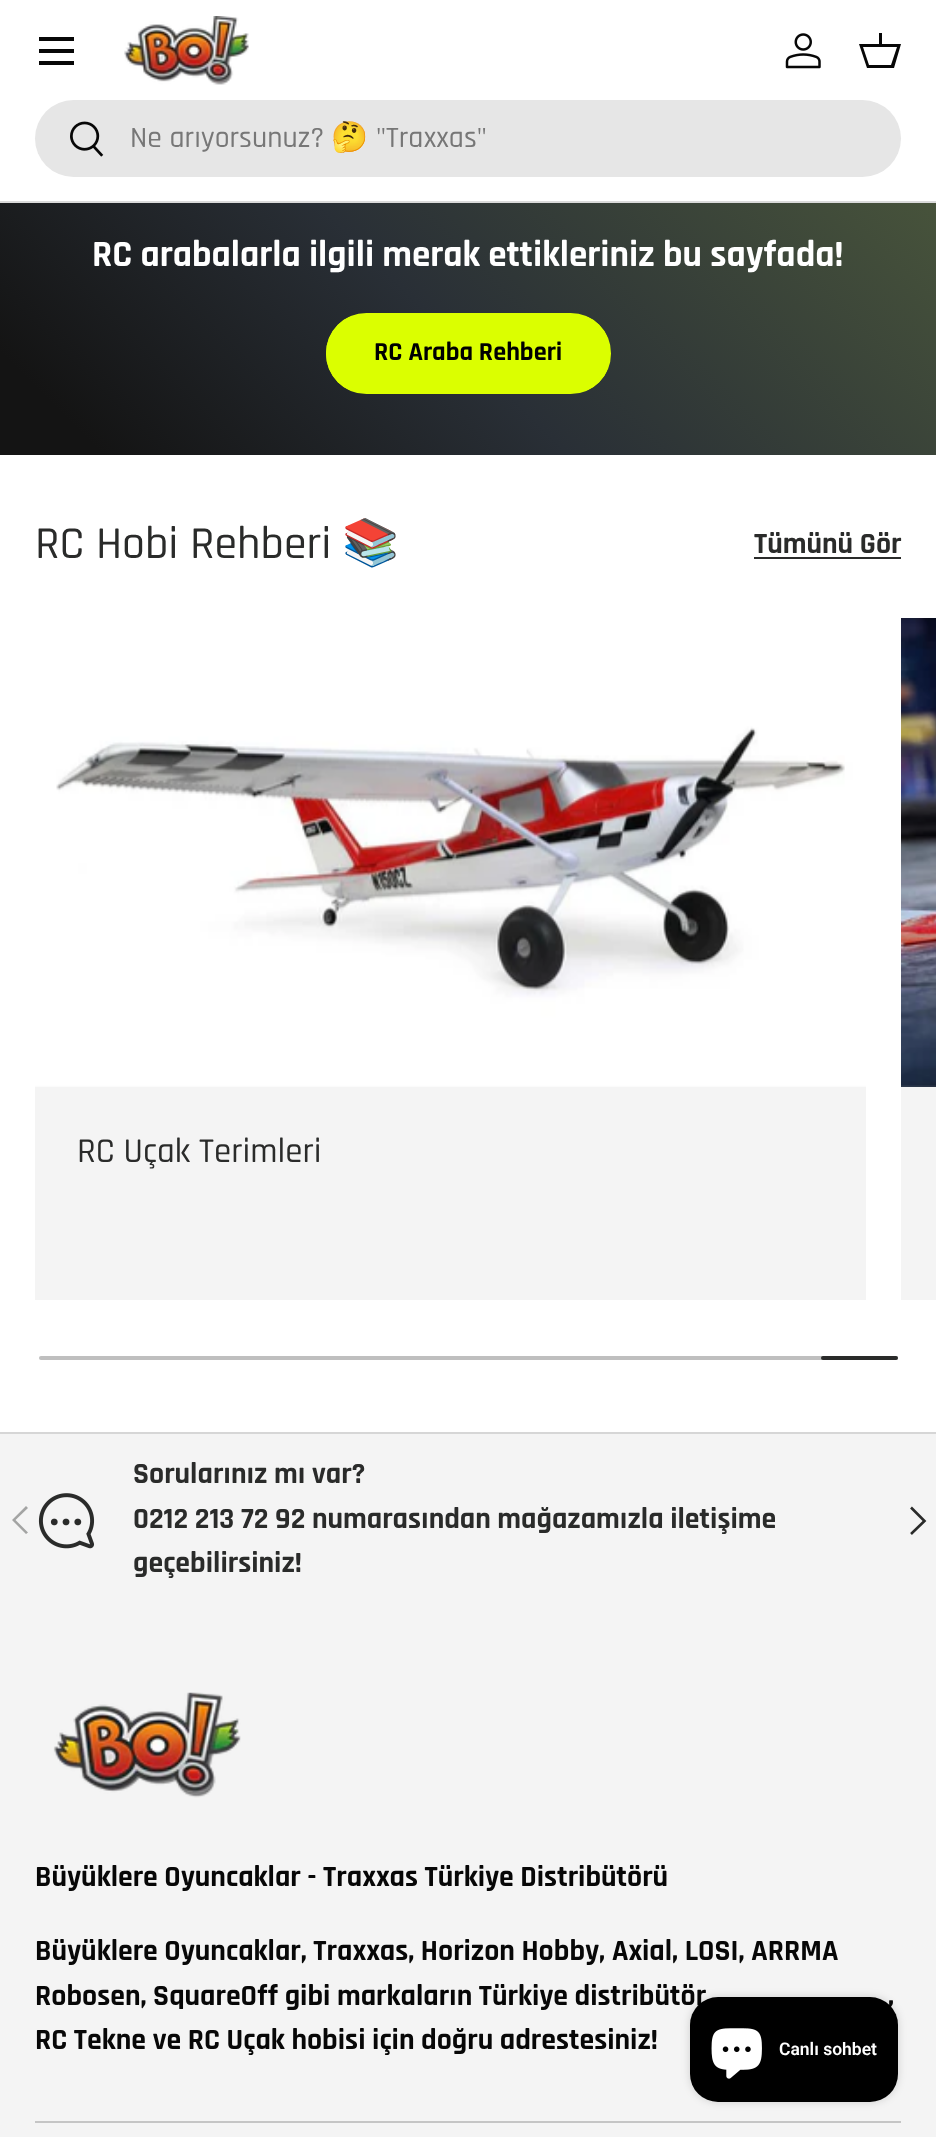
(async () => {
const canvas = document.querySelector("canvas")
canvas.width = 936
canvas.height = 2137
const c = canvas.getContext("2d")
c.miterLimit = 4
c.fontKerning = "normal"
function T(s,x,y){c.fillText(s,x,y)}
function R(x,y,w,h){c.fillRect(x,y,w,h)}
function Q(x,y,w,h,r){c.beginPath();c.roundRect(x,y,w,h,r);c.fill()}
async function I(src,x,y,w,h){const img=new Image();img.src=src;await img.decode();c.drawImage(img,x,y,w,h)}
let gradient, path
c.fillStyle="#fff"
R(0,0,936,2137)
c.fillStyle="#dadada"
R(0,201,936,2)
c.fillStyle="#070707"
R(39,37,35,4)
R(39,61,35,4)
R(39,49,35,4)
await I("1.png",124,16,125,69)
await I("2.png",785,33,36,36)
path = new Path2D("M879 44v-11h3v11h19l-7 24h-27l-8-24zm-16 3l6 18h22l6-18z")
c.fill(path)
c.fillStyle="#e6e6e6"
Q(35,100,866,77,38.5)
await I("3.png",70,121,34,36)
c.font="500 29.75px Rajdhani"
c.fillStyle="#777"
T("Ne arıyorsunuz?",130,147)
c.font="29.75px Noto Color Emoji"
T("🤔",331,147)
c.font="500 29.75px Rajdhani"
T("\"Traxxas\"",376,147)
gradient = c.createLinearGradient(791,-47,145,600)
gradient.addColorStop(.08,"#47533b")
gradient.addColorStop(.56,"#292f36")
gradient.addColorStop(.92,"#141414")
c.fillStyle = gradient
R(0,203,936,252)
c.font="bold 37.2px Rajdhani"
c.fillStyle="#fff"
T("RC arabalarla ilgili merak ettikleriniz bu sayfada!",92,266)
c.save()
c.beginPath()
c.roundRect(326,313,285,81,40.5)
c.clip()
gradient = c.createLinearGradient(-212,253,591,454)
gradient.addColorStop(.6,"#c7e800")
gradient.addColorStop(.6,"#dbff00")
gradient.addColorStop(1,"#dbff00")
c.fillStyle = gradient
R(326,317,281,73)
c.restore()
c.beginPath()
c.roundRect(328,315,281,77,38.5)
c.strokeStyle="#dbff00"
c.lineWidth=4
c.stroke()
c.font="bold 26.25px Rajdhani"
c.fillStyle="#000"
T("RC Araba Rehberi",374,360)
c.font="500 45.75px Rajdhani"
c.fillStyle="#2a2b2a"
T("RC Hobi Rehberi",35,558)
c.font="45.75px Noto Color Emoji"
T("📚",342,558)
c.font="bold 29.75px Rajdhani"
T("Tümünü Gör",754,553)
R(754,557,147,2)
c.fillStyle="#f4f4f4"
R(35,1085,831,215)
await I("4.png",35,618,831,469)
c.font="500 35px Rajdhani"
c.fillStyle="#2a2b2a"
T("RC Uçak Terimleri",77,1162)
c.fillStyle="#f4f4f4"
R(901,1085,35,215)
await I("5.png",901,618,35,469)
c.fillStyle="#bfbfbf"
Q(39,1356,859,4,2)
c.fillStyle="#2a2b2a"
Q(821,1356,77,4,2)
c.fillStyle="#f4f4f4"
R(0,1434,936,703)
c.fillStyle="#d6d6d6"
R(0,1432,936,2)
await I("6.png",38,1493,57,56)
c.font="bold 29.75px Rajdhani"
c.fillStyle="#2a2b2a"
T("Sorularınız mı var?",133,1483)
T("0212 213 72 92 numarasından mağazamızla iletişime",133,1528)
T("geçebilirsiniz!",133,1572)
c.fillStyle="#a3a4a3"
path = new Path2D("M12 1520l14-14l2 2l-12.5 12l12.5 12.5l-2 1.5z")
c.fill(path)
path = new Path2D("M911 1507.5l13.5 13.5l-13.5 13")
c.strokeStyle="#2a2b2a"
c.lineWidth=2.6
c.stroke(path)
await I("7.png",53,1692,188,106)
c.fillStyle="#070707"
T("Büyüklere Oyuncaklar - Traxxas Türkiye Distribütörü",35,1886)
T("Büyüklere Oyuncaklar, Traxxas, Horizon Hobby, Axial, LOSI, ARRMA",35,1960)
T("Robosen, SquareOff gibi markaların Türkiye distribütör",35,2005)
T(",",888,2005)
T("RC Tekne ve RC Uçak hobisi için doğru adrestesiniz!",35,2049)
c.fillStyle="#c5c5c5"
R(35,2121,866,2)
c.fillStyle="#00000026"
c.filter="blur(4.5px)"
c.beginPath()
c.roundRect(690,1997,208,105,28)
c.fill()
c.filter="none"
c.fillStyle="#000"
Q(690,1997,208,105,28)
await I("8.png",711,2028,51,51)
c.font="600 17.5px Roboto"
c.fillStyle="#fff"
T("Canlı sohbet",779,2055)
})()
